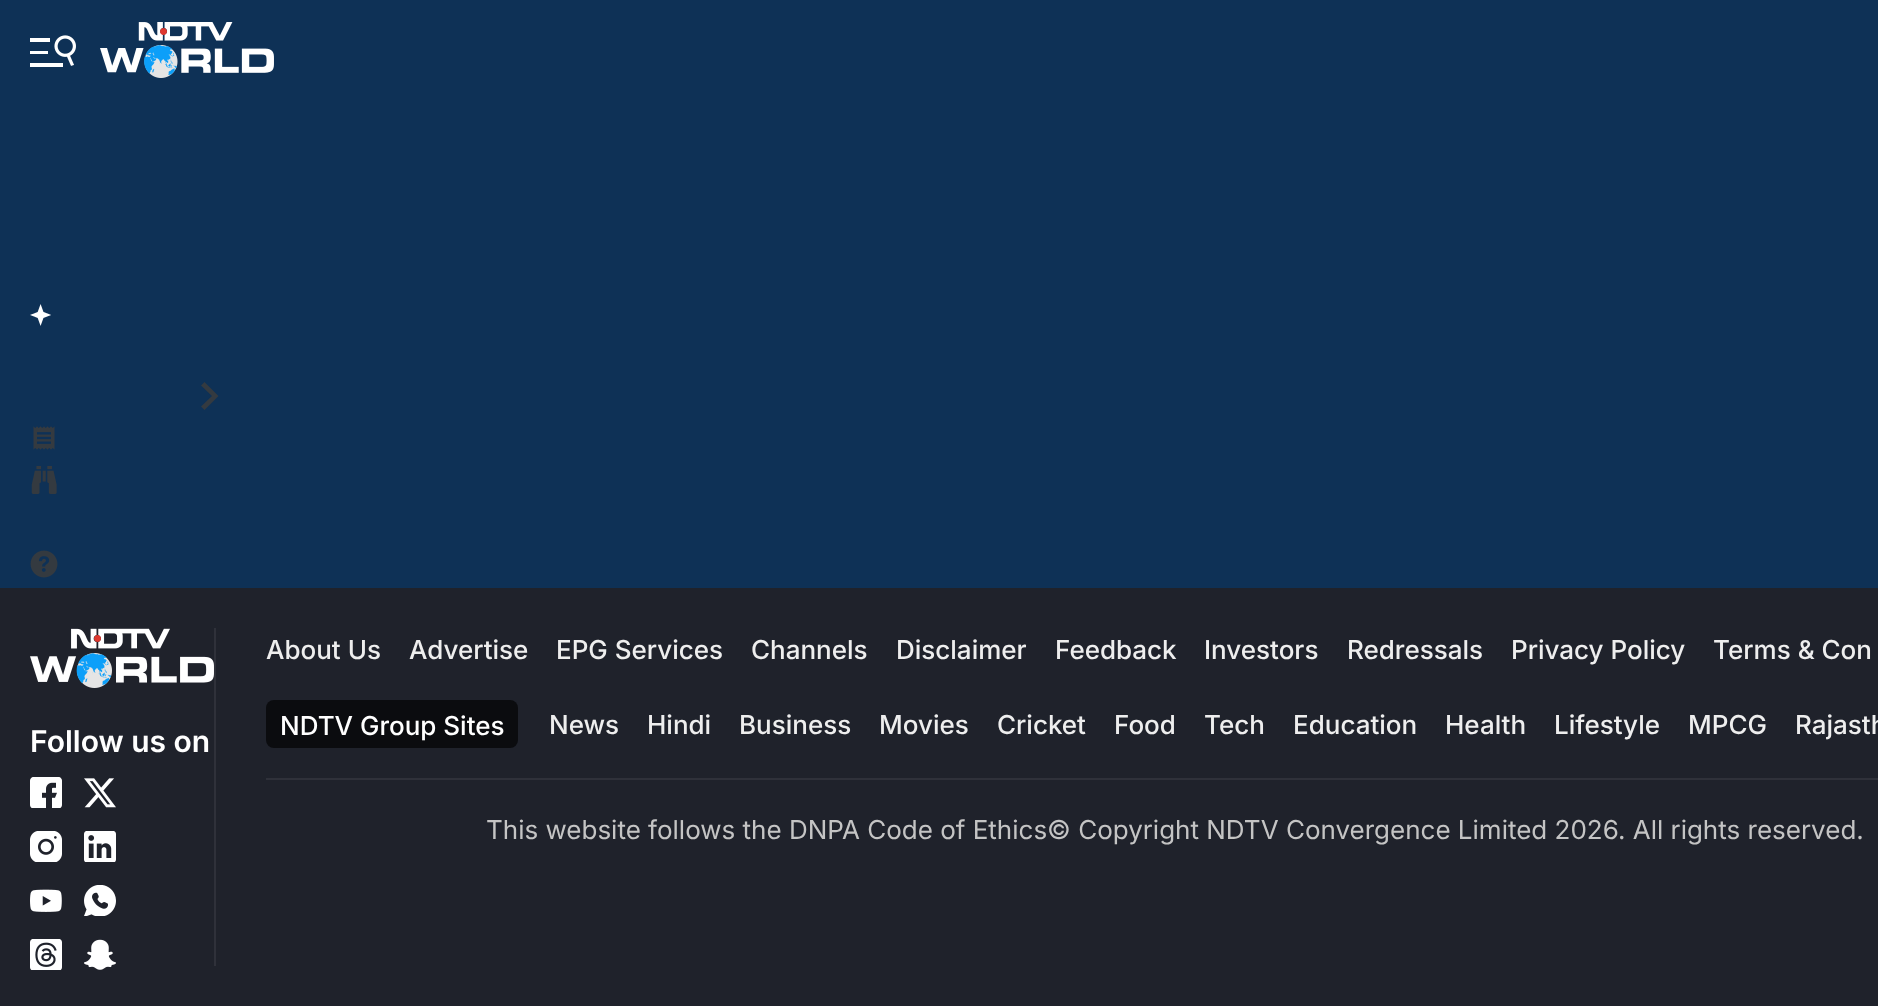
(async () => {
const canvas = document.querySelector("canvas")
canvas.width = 1878
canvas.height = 1006
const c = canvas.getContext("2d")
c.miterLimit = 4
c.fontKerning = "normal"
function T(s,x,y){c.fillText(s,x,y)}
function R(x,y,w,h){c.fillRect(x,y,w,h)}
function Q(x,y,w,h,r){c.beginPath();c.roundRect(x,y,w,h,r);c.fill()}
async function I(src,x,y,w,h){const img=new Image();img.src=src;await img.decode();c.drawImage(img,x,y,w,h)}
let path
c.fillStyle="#0e3156"
R(0,0,1878,1006)
await I("1.png",30,35,46,32)
await I("2.png",100,22,174,56)
await I("3.png",30,304,21,22)
c.fillStyle="#343a40"
path = new Path2D("M204.5 382l-3.5 3.5l11 10.5l-11 10.5l3.5 3.5l14-14z")
c.fill(path)
await I("4.png",33,426,22,24)
await I("5.png",31,466,26,28)
await I("6.png",30,550,28,28)
c.fillStyle="#1f222b"
R(0,588,1878,418)
c.fillStyle="#2f313a"
R(214,628,2,338)
await I("7.png",30,628,184,60)
c.font="600 30px Inter"
c.fillStyle="#fff"
T("Follow us on",30,752)
await I("8.png",30,777,32,31)
await I("9.png",84,778,32,30)
await I("10.png",30,831,32,31)
await I("11.png",84,831,32,31)
await I("12.png",30,889,32,23)
await I("13.png",84,885,32,31)
await I("14.png",30,939,32,31)
await I("15.png",84,939,32,31)
c.fillStyle="#2f313a"
R(266,778,1612,2)
c.font="500 26px Inter"
c.fillStyle="#eee"
T("About Us",266,659)
T("Advertise",409,659)
T("EPG Services",556,659)
T("Channels",751,659)
T("Disclaimer",896,659)
T("Feedback",1055,659)
T("Investors",1204,659)
T("Redressals",1347,659)
T("Privacy Policy",1511,659)
T("Terms & Con",1713,659)
c.fillStyle="#0b0c0f"
Q(266,700,252,48,8)
c.fillStyle="#fff"
T("NDTV Group Sites",280,735)
c.fillStyle="#eee"
T("News",549,734)
T("Hindi",647,734)
T("Business",739,734)
T("Movies",879,734)
T("Cricket",997,734)
T("Food",1114,734)
T("Tech",1204,734)
T("Education",1293,734)
T("Health",1445,734)
T("Lifestyle",1554,734)
T("MPCG",1688,734)
T("Rajasth",1795,734)
c.font="26px Inter"
c.fillStyle="#c4c4c4"
T("This website follows the DNPA Code of Ethics© Copyright NDTV Convergence Limited 2026. All rights reserved.",486,839)
})()
